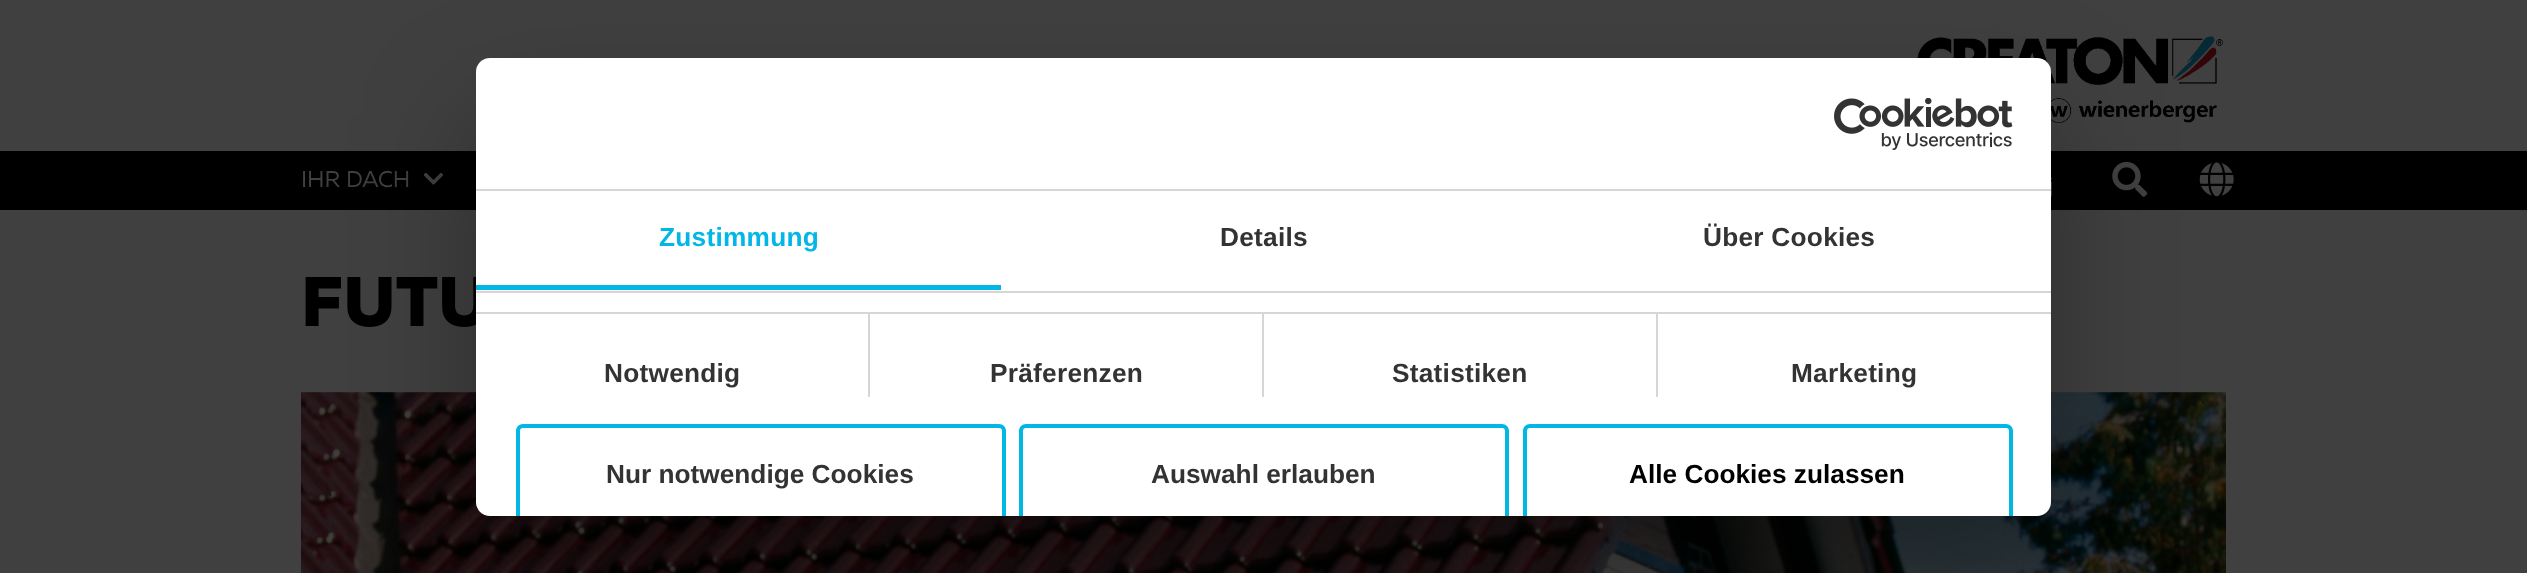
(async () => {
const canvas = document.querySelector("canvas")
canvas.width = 2527
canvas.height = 573
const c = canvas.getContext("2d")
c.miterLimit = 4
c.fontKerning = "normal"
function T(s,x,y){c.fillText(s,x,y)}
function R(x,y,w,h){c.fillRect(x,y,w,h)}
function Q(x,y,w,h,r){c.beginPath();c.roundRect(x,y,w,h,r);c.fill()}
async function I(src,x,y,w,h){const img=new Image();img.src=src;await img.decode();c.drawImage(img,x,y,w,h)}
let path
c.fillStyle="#404040"
R(0,0,2527,573)
await I("1.png",1917,36,306,87)
c.fillStyle="#000"
R(0,151,2527,59)
c.font="22.75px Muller"
c.fillStyle="#404040"
T("IHR DACH",301,187)
await I("2.png",423,172,21,13)
await I("3.png",2051,177,1,20)
await I("4.png",2112,161,36,36)
await I("5.png",2199,162,35,35)
c.font="800 70px Muller"
c.fillStyle="#000"
T("FUTU",301,326)
await I("6.png",301,392,1925,181)
c.fillStyle="#0000004d"
c.filter="blur(59.5px)"
c.beginPath()
c.roundRect(476,114,1575,458,14)
c.fill()
c.filter="none"
c.fillStyle="#fff"
Q(476,58,1575,458,14)
c.fillStyle="#d6d6d6"
R(476,189,1575,2)
await I("7.png",1834,98,179,52)
R(476,291,1575,2)
c.fillStyle="#02b7e5"
R(476,285,525,5)
c.letterSpacing="0.25px"
c.font="bold 26.25px Liberation Sans"
T("Zustimmung",659,246)
c.fillStyle="#333"
T("Details",1220,246)
T("Über Cookies",1703,246)
c.fillStyle="#d6d6d6"
R(868,313,2,84)
R(1262,313,2,84)
R(1656,313,2,84)
R(476,312,1575,2)
c.fillStyle="#333"
T("Notwendig",604,382)
T("Präferenzen",990,382)
T("Statistiken",1392,382)
T("Marketing",1791,382)
c.fillStyle="#02b7e5"
path = new Path2D("M523 424c-4 0-7 3-7 7v85h4v-85c0-2 1-3 3-3h476c2 0 3 1 3 3v85h4v-85c0-4-3-7-7-7z")
c.fill(path)
c.letterSpacing="0px"
c.fillStyle="#333"
T("Nur notwendige Cookies",606,483)
c.fillStyle="#02b7e5"
path = new Path2D("M1026 424c-4 0-7 3-7 7v85h4v-85c0-2 1-3 3-3h476c2 0 3 1 3 3v85h4v-85c0-4-3-7-7-7z")
c.fill(path)
c.fillStyle="#333"
T("Auswahl erlauben",1151,483)
c.fillStyle="#02b7e5"
path = new Path2D("M1530 424c-4 0-7 3-7 7v85h4v-85c0-2 1-3 3-3h476c2 0 3 1 3 3v85h4v-85c0-4-3-7-7-7z")
c.fill(path)
c.fillStyle="#000"
T("Alle Cookies zulassen",1629,483)
})()
